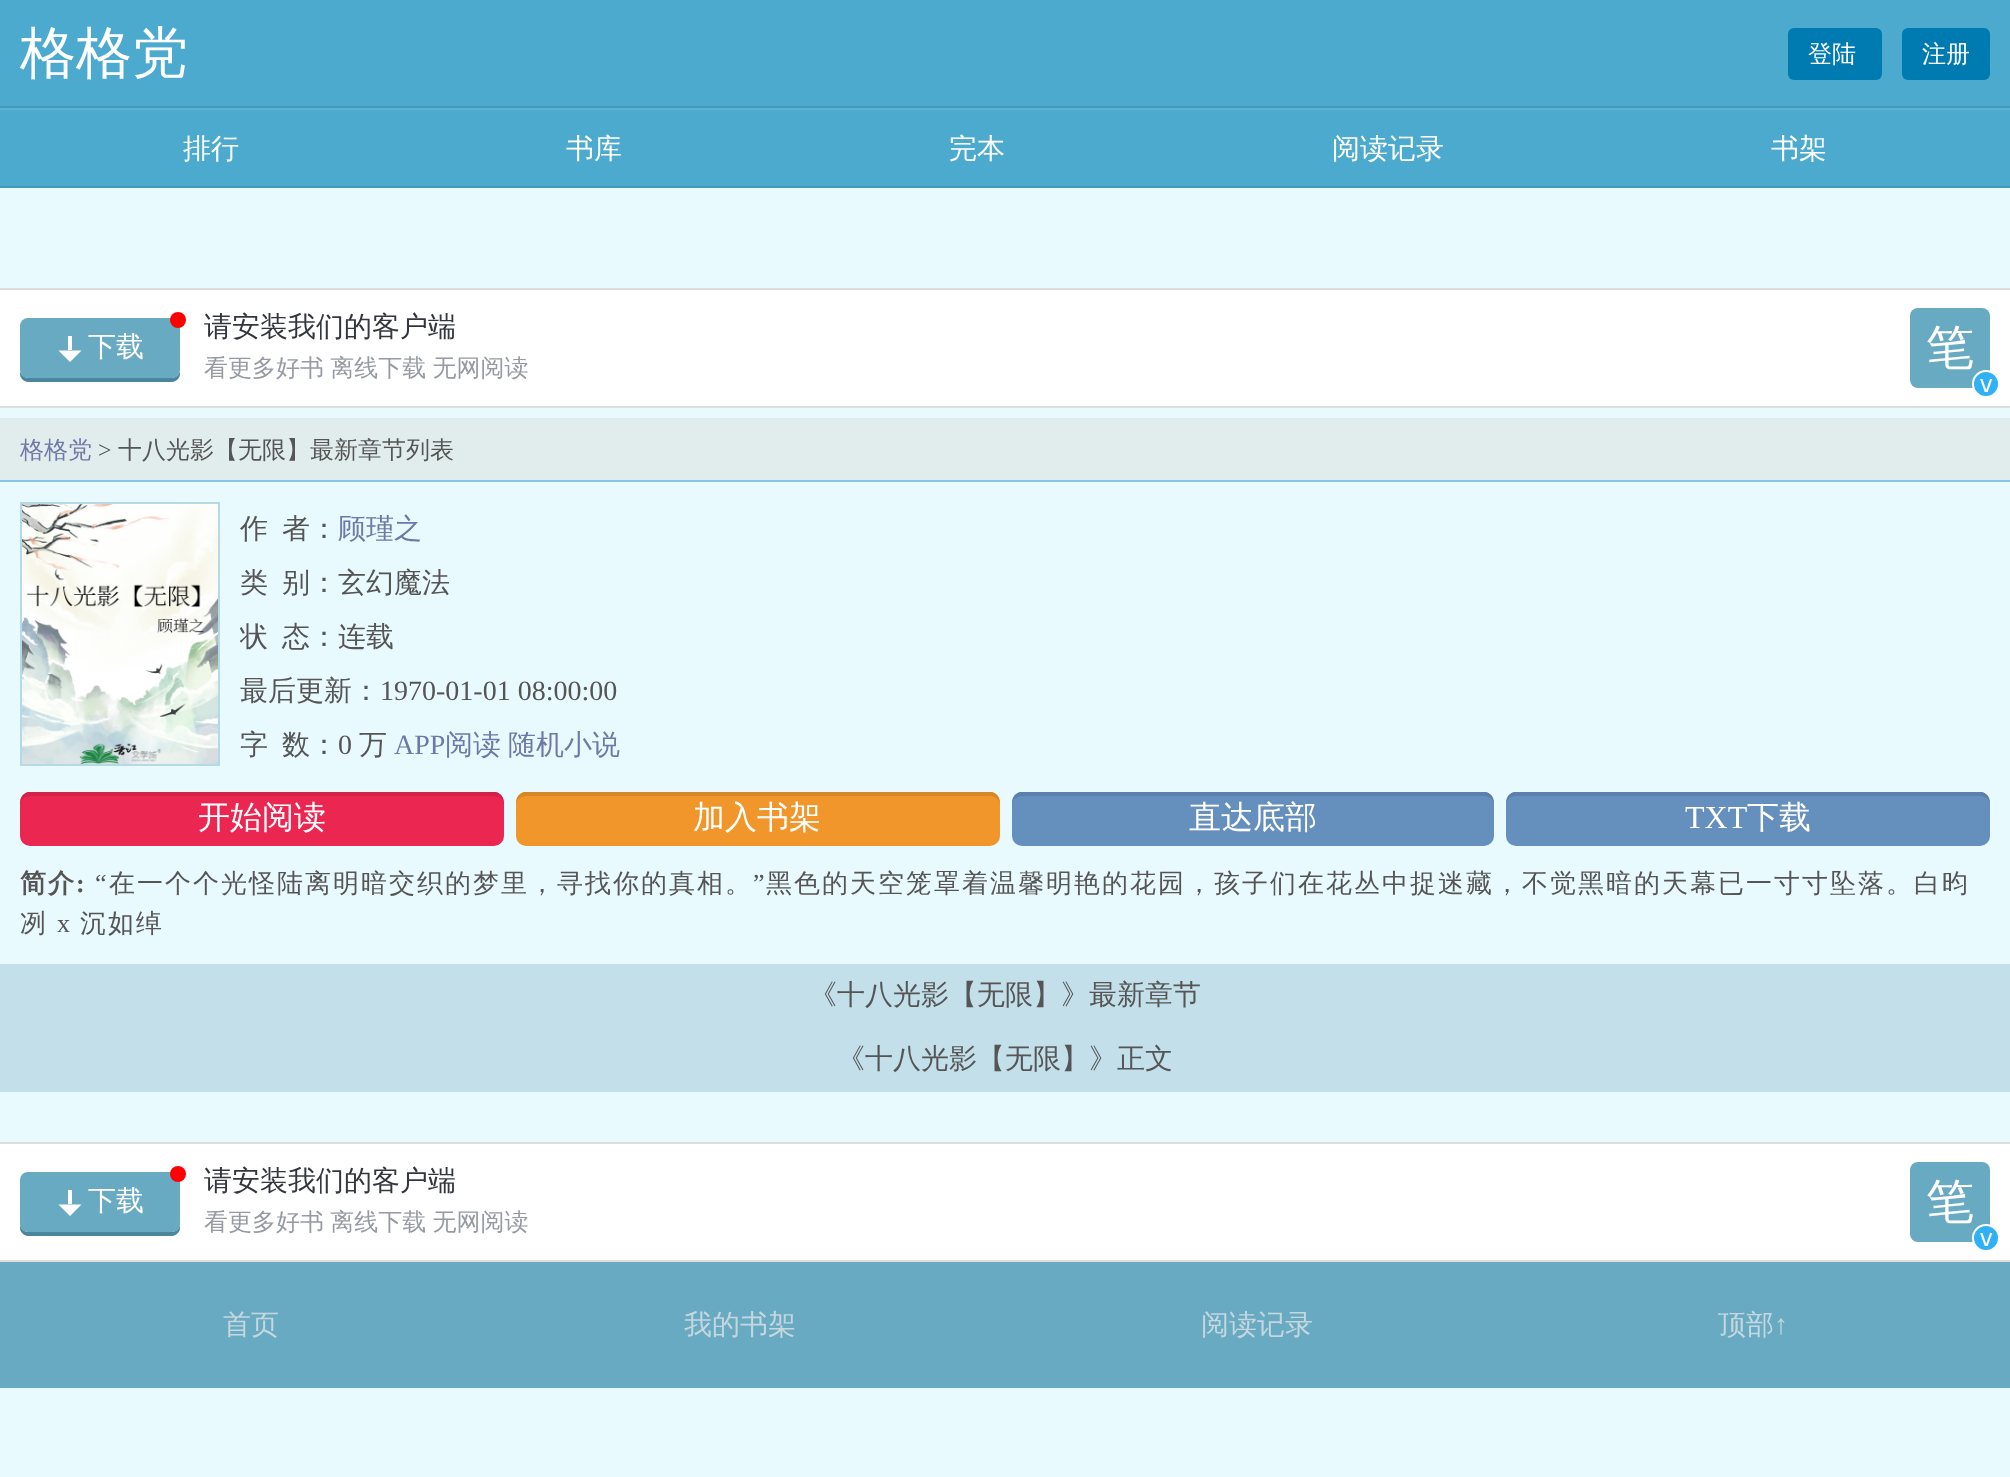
(async () => {
const canvas = document.querySelector("canvas")
canvas.width = 2010
canvas.height = 1477
const c = canvas.getContext("2d")
c.miterLimit = 4
c.fontKerning = "normal"
function T(s,x,y){c.fillText(s,x,y)}
function R(x,y,w,h){c.fillRect(x,y,w,h)}
function Q(x,y,w,h,r){c.beginPath();c.roundRect(x,y,w,h,r);c.fill()}
async function I(src,x,y,w,h){const img=new Image();img.src=src;await img.decode();c.drawImage(img,x,y,w,h)}
let path
c.fillStyle="#e9faff"
R(0,0,2010,1477)
c.fillStyle="#4baacd"
R(0,0,2010,106)
c.fillStyle="#4399b8"
R(0,106,2010,2)
c.font="500 56px WenQuanYi Zen Hei"
c.fillStyle="#fff"
T("格格党",20,72)
c.fillStyle="#007bb1"
Q(1788,28,94,52,6)
c.font="500 24px WenQuanYi Zen Hei"
c.fillStyle="#fff"
T("登陆",1808,62)
c.fillStyle="#007bb1"
Q(1902,28,88,52,6)
c.fillStyle="#fff"
T("注册",1922,62)
c.fillStyle="#4baacd"
R(0,110,2010,76)
c.fillStyle="#5db3d2"
R(0,108,2010,2)
c.fillStyle="#4399b8"
R(0,186,2010,2)
c.font="500 28px WenQuanYi Zen Hei"
c.fillStyle="#fff"
T("排行",183,158)
T("书库",566,158)
T("完本",949,158)
T("阅读记录",1332,158)
T("书架",1771,158)
R(0,290,2010,116)
c.fillStyle="#ddd"
R(0,288,2010,2)
R(0,406,2010,2)
c.fillStyle="#4b879c"
path = new Path2D("M20 370v4c0 4 4 8 8 8h144c4 0 8-4 8-8v-4c0 4-4 8-8 8h-144c-4 0-8-4-8-8z")
c.fill(path)
c.fillStyle="#68aac2"
Q(20,318,160,60,8)
c.fillStyle="#f00"
c.beginPath()
c.arc(178,320,8,0,7)
c.fill()
c.fillStyle="#fff"
R(68,336,4,14)
path = new Path2D("M81.5 350.5l-11.5 11.5v-11.5zm-11.5 11.5l-11.5-11.5h11.5z")
c.fill(path)
T("下载",88,356)
c.fillStyle="#33373d"
T("请安装我们的客户端",204,336)
c.wordSpacing="-1px"
c.font="500 24px WenQuanYi Zen Hei"
c.fillStyle="#969ba3"
T("看更多好书 离线下载 无网阅读",204,376)
c.fillStyle="#68aac2"
Q(1910,308,80,80,8)
c.wordSpacing="0px"
c.font="500 48px WenQuanYi Zen Hei"
c.fillStyle="#fff"
T("笔",1926,364)
c.fillStyle="#2fb0f7"
c.beginPath()
c.arc(1986,384,13,0,7)
c.fill()
c.strokeStyle="#fff"
c.lineWidth=2
c.stroke()
c.font="24px DejaVu Sans Mono"
c.fillStyle="#fff"
T("v",1979,392)
c.fillStyle="#e1eced"
R(0,418,2010,62)
c.fillStyle="#88c6e5"
R(0,480,2010,2)
c.font="500 24px WenQuanYi Zen Hei"
c.fillStyle="#6f78a7"
T("格格党",20,458)
c.font="24px Liberation Serif"
c.fillStyle="#555"
T(">",98,458)
c.font="500 24px WenQuanYi Zen Hei"
T("十八光影【无限】最新章节列表",118,458)
c.strokeStyle="#b4dae8"
c.strokeRect(21,503,198,262)
await I("1.png",22,504,196,260)
c.font="500 28px WenQuanYi Zen Hei"
T("作",240,538)
T("者：",282,538)
c.fillStyle="#6f78a7"
T("顾瑾之",338,538)
c.fillStyle="#555"
T("类",240,592)
T("别：玄幻魔法",282,592)
c.save()
c.beginPath()
c.rect(240,610,1730,54)
c.clip()
T("状",240,646)
c.restore()
T("态：连载",282,646)
T("最后更新：",240,700)
c.font="28px Liberation Serif"
T("1970-01-01 08:00:00",380,700)
c.font="500 28px WenQuanYi Zen Hei"
T("字",240,754)
T("数：",282,754)
c.font="28px Liberation Serif"
T("0",338,754)
c.font="500 28px WenQuanYi Zen Hei"
T("万",359,754)
c.font="28px Liberation Serif"
c.fillStyle="#6f78a7"
T("APP",394,754)
c.font="500 28px WenQuanYi Zen Hei"
T("阅读",445,754)
T("随机小说",508,754)
c.fillStyle="#eb2650"
Q(20,792,484,54,10)
c.fillStyle="#d32248"
path = new Path2D("M30 796h464c6 0 10 4 10 10c0-6-1-12-8-14h-468c-7 2-8 8-8 14c0-6 4-10 10-10z")
c.fill(path)
c.font="500 32px WenQuanYi Zen Hei"
c.fillStyle="#fff"
T("开始阅读",198,828)
c.fillStyle="#f0962a"
Q(516,792,484,54,10)
c.fillStyle="#d88726"
path = new Path2D("M526 796h464c6 0 10 4 10 10c0-6-1-12-8-14h-468c-7 2-8 8-8 14c0-6 4-10 10-10z")
c.fill(path)
c.fillStyle="#fff"
T("加入书架",693,828)
c.fillStyle="#658fbd"
Q(1012,792,482,54,10)
c.fillStyle="#5b80aa"
path = new Path2D("M1022 796h462c6 0 10 4 10 10c0-6-1-12-8-14h-466c-7 2-8 8-8 14c0-6 4-10 10-10z")
c.fill(path)
c.fillStyle="#fff"
T("直达底部",1189,828)
c.fillStyle="#658fbd"
Q(1506,792,484,54,10)
c.fillStyle="#5b80aa"
path = new Path2D("M1516 796h464c6 0 10 4 10 10c0-6-1-12-8-14h-468c-7 2-8 8-8 14c0-6 4-10 10-10z")
c.fill(path)
c.font="32px Liberation Serif"
c.fillStyle="#fff"
T("TXT",1685,828)
c.font="500 32px WenQuanYi Zen Hei"
T("下载",1747,828)
c.letterSpacing="2px"
c.font="bold 26px WenQuanYi Zen Hei"
c.fillStyle="#555"
T("简介",20,892)
c.font="26px Liberation Serif"
T("“",95,892)
c.font="500 26px WenQuanYi Zen Hei"
T("在一个个光怪陆离明暗交织的梦里，寻找你的真相。",109,892)
c.font="26px Liberation Serif"
T("”",753,892)
c.font="500 26px WenQuanYi Zen Hei"
T("黑色的天空笼罩着温馨明艳的花园，孩子们在花丛中捉迷藏，不觉黑暗的天幕已一寸寸坠落。白昀",766,892)
c.font="bold 26px Liberation Serif"
T(":",76,892)
c.font="500 26px WenQuanYi Zen Hei"
T("冽",20,932)
c.font="26px Liberation Serif"
T("x",57,932)
c.font="500 26px WenQuanYi Zen Hei"
T("沉如绰",80,932)
c.fillStyle="#c3dfea"
R(0,964,2010,128)
c.letterSpacing="0px"
c.font="500 28px WenQuanYi Zen Hei"
c.fillStyle="#555"
T("《十八光影【无限】》最新章节",809,1004)
T("《十八光影【无限】》正文",837,1068)
c.fillStyle="#fff"
R(0,1144,2010,116)
c.fillStyle="#ddd"
R(0,1142,2010,2)
R(0,1260,2010,2)
c.fillStyle="#4b879c"
path = new Path2D("M20 1224v4c0 4 4 8 8 8h144c4 0 8-4 8-8v-4c0 4-4 8-8 8h-144c-4 0-8-4-8-8z")
c.fill(path)
c.fillStyle="#68aac2"
Q(20,1172,160,60,8)
c.fillStyle="#f00"
c.beginPath()
c.arc(178,1174,8,0,7)
c.fill()
c.fillStyle="#fff"
R(68,1190,4,14)
path = new Path2D("M81.5 1204.5l-11.5 11.5v-11.5zm-11.5 11.5l-11.5-11.5h11.5z")
c.fill(path)
T("下载",88,1210)
c.fillStyle="#33373d"
T("请安装我们的客户端",204,1190)
c.wordSpacing="-1px"
c.font="500 24px WenQuanYi Zen Hei"
c.fillStyle="#969ba3"
T("看更多好书 离线下载 无网阅读",204,1230)
c.fillStyle="#68aac2"
Q(1910,1162,80,80,8)
c.wordSpacing="0px"
c.font="500 48px WenQuanYi Zen Hei"
c.fillStyle="#fff"
T("笔",1926,1218)
c.fillStyle="#2fb0f7"
c.beginPath()
c.arc(1986,1238,13,0,7)
c.fill()
c.strokeStyle="#fff"
c.stroke()
c.font="24px DejaVu Sans Mono"
c.fillStyle="#fff"
T("v",1979,1246)
c.fillStyle="#68aac2"
R(0,1262,2010,126)
c.font="500 28px WenQuanYi Zen Hei"
c.fillStyle="#c5d7df"
T("首页",223,1334)
T("我的书架",684,1334)
T("阅读记录",1201,1334)
T("顶部",1718,1334)
c.font="28px Liberation Serif"
T("↑",1774,1334)
})()
